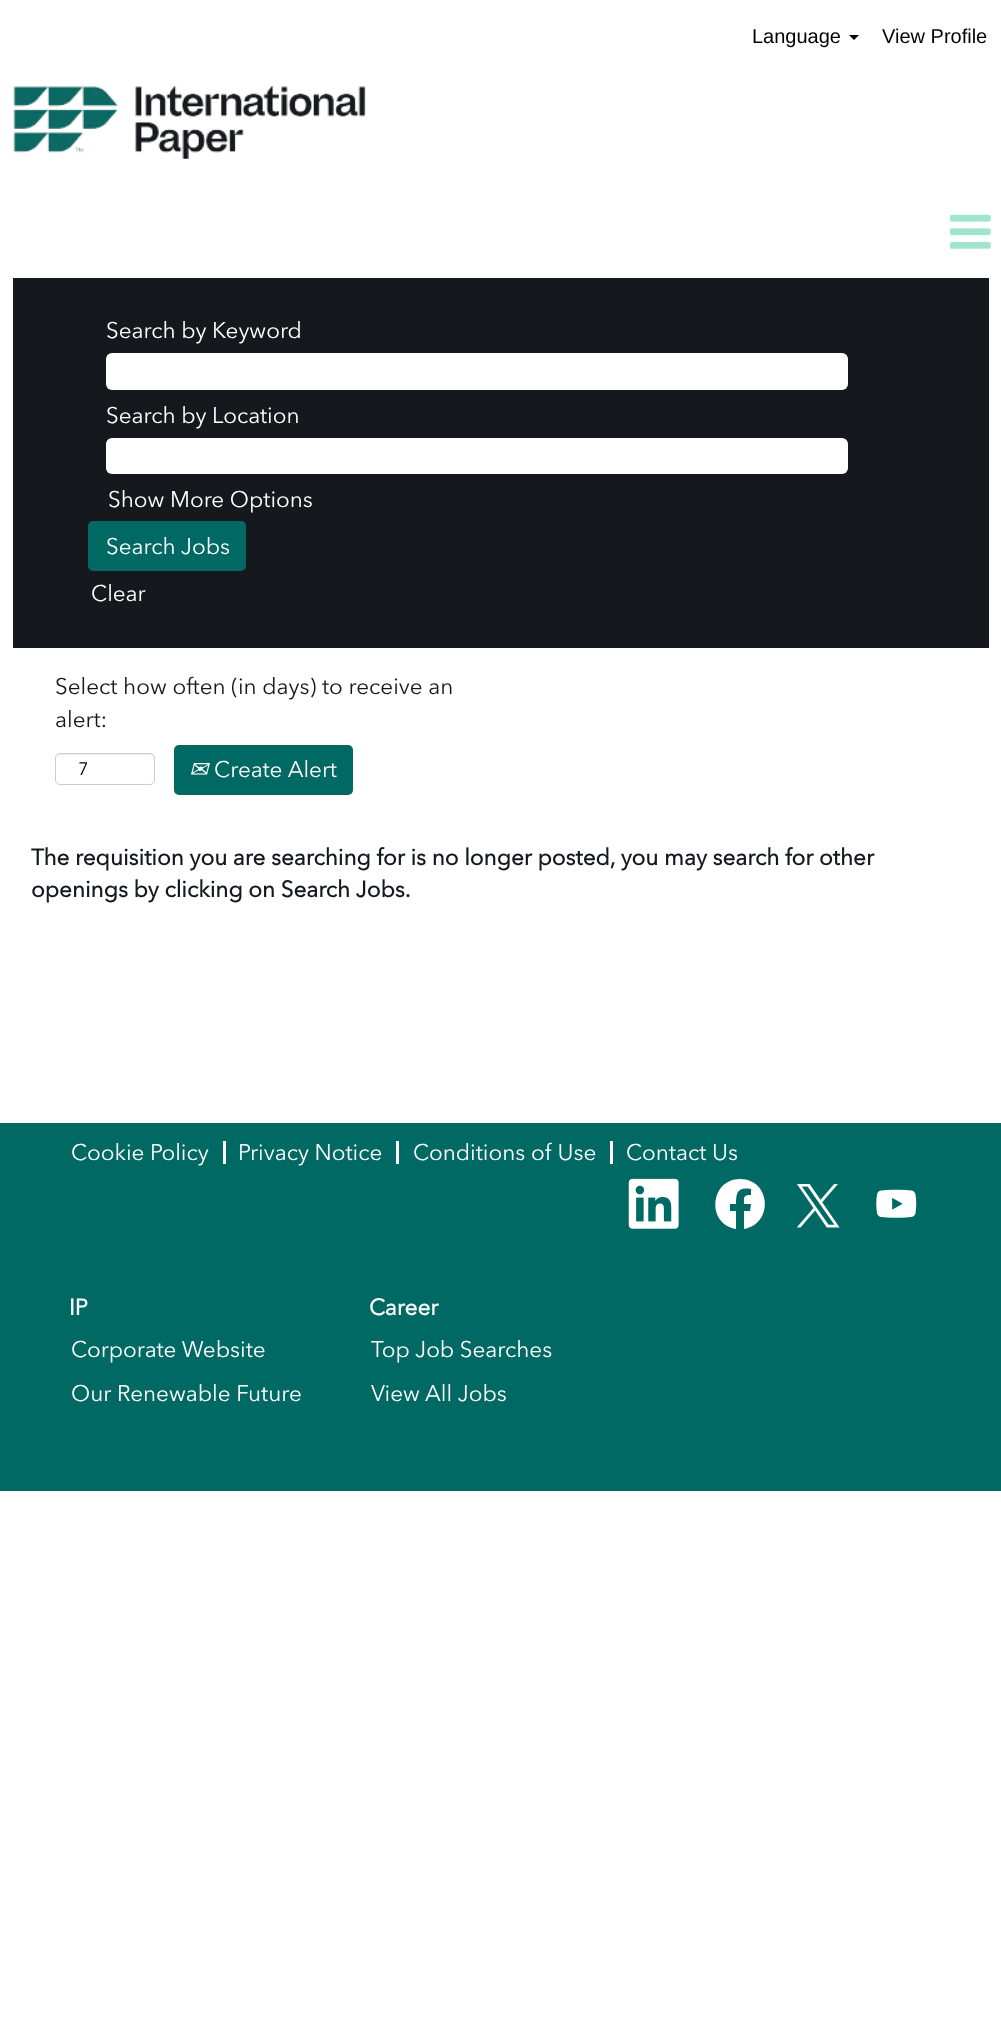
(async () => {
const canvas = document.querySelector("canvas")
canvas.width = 1001
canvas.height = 2027
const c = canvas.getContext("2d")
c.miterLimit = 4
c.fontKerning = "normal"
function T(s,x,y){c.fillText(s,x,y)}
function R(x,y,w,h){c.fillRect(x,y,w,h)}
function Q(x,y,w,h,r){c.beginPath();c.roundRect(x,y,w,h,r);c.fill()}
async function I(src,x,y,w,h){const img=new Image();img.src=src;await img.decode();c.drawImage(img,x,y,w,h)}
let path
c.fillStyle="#fff"
R(0,0,1001,2027)
c.font="20px Liberation Sans"
c.fillStyle="#000"
T("Language",752,43)
path = new Path2D("M849 35h10l-5 5z")
c.fill(path)
T("View Profile",882,43)
await I("1.png",13,85,353,74)
await I("2.png",950,214,41,35)
c.fillStyle="#15191e"
R(13,278,976,370)
c.font="22.5px Avenir Next"
c.fillStyle="#fff"
T("Search by Keyword",106,338)
Q(106,353,742,37,6)
T("Search by Location",106,423)
Q(106,438,742,36,6)
T("Show More Options",108,507)
c.fillStyle="#006963"
Q(88,521,158,50,5)
c.fillStyle="#fff"
T("Search Jobs",106,554)
T("Clear",91,601)
c.fillStyle="#15191e"
T("Select how often (in days) to receive an",55,694)
T("alert:",55,727)
c.fillStyle="#ececec"
path = new Path2D("M60 755h90c2 0 4 2 4 4c0-9-15-5-19-5h-60c-4 0-19-4-19 5c0-2 2-4 4-4z")
c.fill(path)
c.beginPath()
c.roundRect(55.5,753.5,99,31,4.5)
c.strokeStyle="#ccc"
c.stroke()
c.font="18px Avenir Next"
c.fillStyle="#000"
T("7",78,775)
c.fillStyle="#006963"
Q(174,745,179,50,5)
c.font="italic 22.5px DejaVu Sans"
c.fillStyle="#fff"
T("✉",189,777)
c.font="22.5px Avenir Next"
T("Create Alert",214,777)
c.font="bold 22.5px Avenir Next"
c.fillStyle="#15191e"
T("The requisition you are searching for is no longer posted, you may search for other",31,865)
T("openings by clicking on Search Jobs.",31,897)
c.fillStyle="#006963"
R(0,1123,1001,368)
c.fillStyle="#fff"
R(223,1141,3,23)
c.font="22.5px Avenir Next"
T("Cookie Policy",71,1160)
R(396,1141,3,23)
T("Privacy Notice",238,1160)
R(610,1141,3,23)
T("Conditions of Use",413,1160)
T("Contact Us",626,1160)
await I("3.png",628,1178,51,51)
path = new Path2D("M740 1179c-30 0-34 45-4 50v-18h-6v-7h6c0-12 2-17 15-15v6c-8 0-7 2-7 9h7l-1 7h-6v18c30-5 27-50-4-50z")
c.fill(path)
await I("4.png",796,1184,44,44)
await I("5.png",876,1189,41,29)
c.font="bold 22.5px Avenir Next"
T("IP",69,1315)
c.font="22.5px Avenir Next"
T("Corporate Website",71,1357)
T("Our Renewable Future",71,1401)
c.font="bold 22.5px Avenir Next"
T("Career",369,1315)
c.font="22.5px Avenir Next"
T("Top Job Searches",371,1357)
T("View All Jobs",371,1401)
})()
